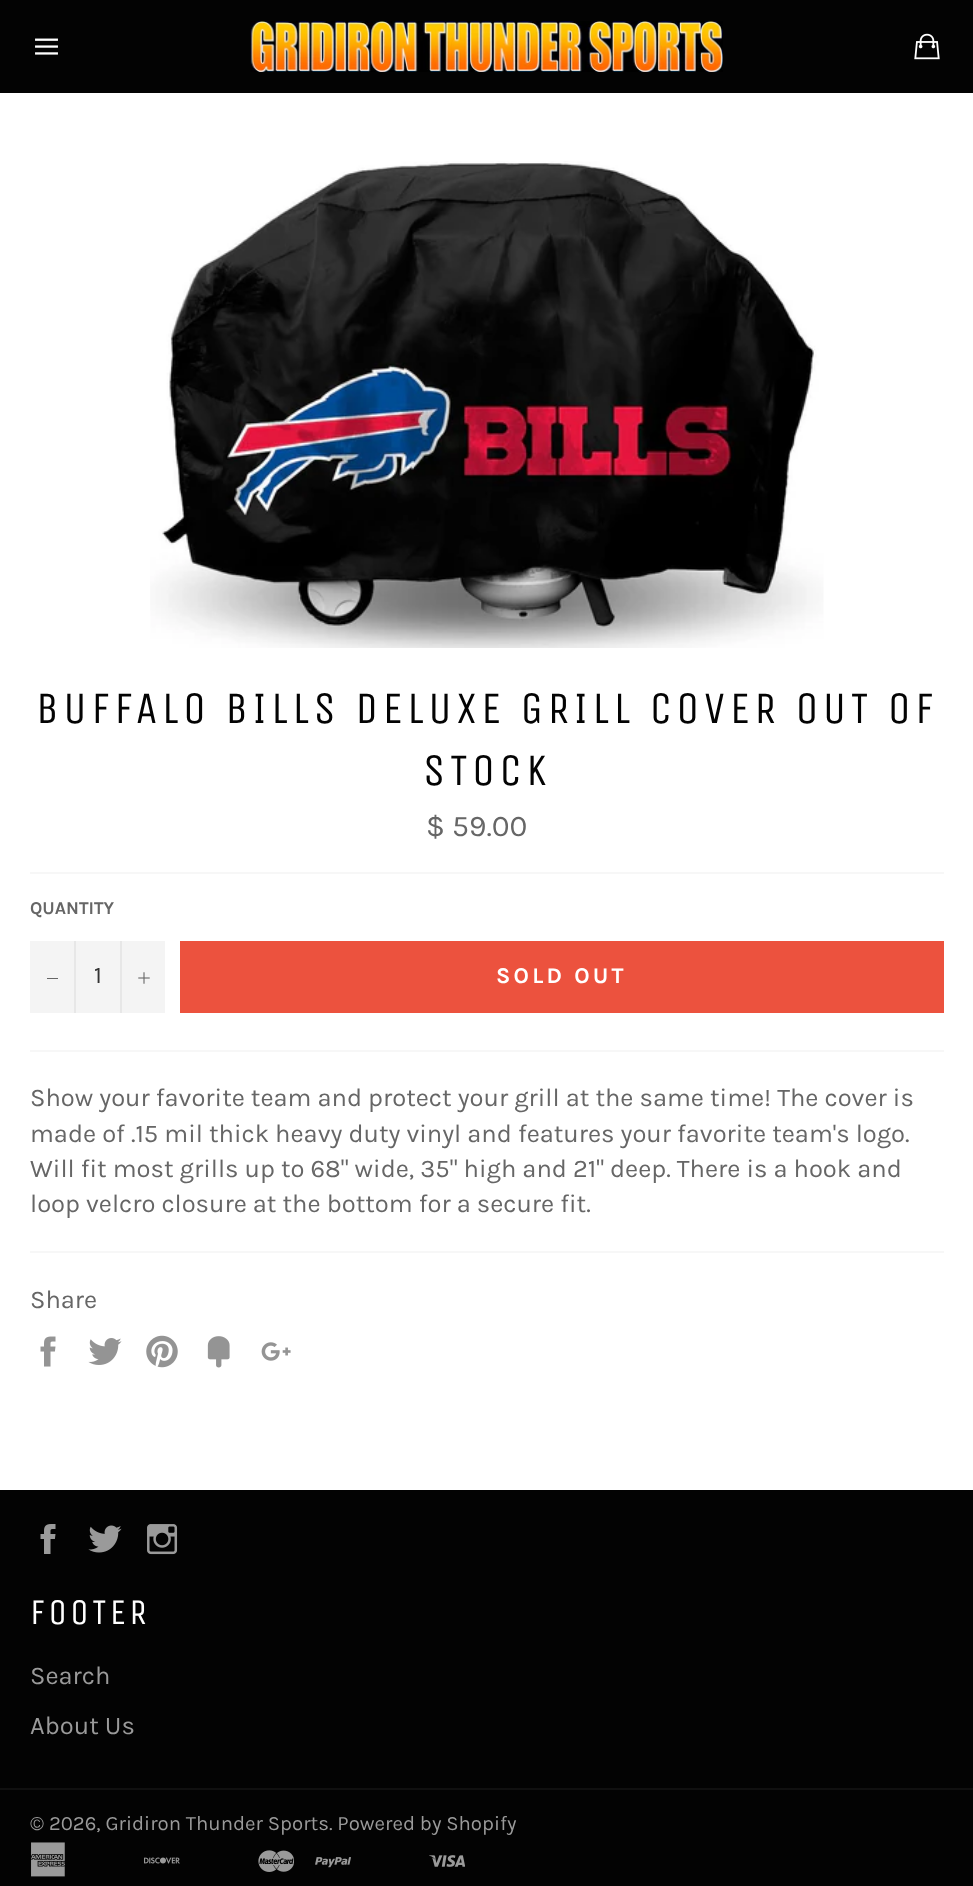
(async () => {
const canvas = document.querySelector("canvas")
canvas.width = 973
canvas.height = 1886
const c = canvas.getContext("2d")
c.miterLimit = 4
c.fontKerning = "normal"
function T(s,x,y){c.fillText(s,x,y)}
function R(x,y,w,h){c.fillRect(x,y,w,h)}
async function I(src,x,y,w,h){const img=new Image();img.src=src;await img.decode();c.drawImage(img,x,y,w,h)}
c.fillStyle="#fff"
R(0,0,973,1886)
c.fillStyle="#030303"
R(0,0,973,93)
await I("1.png",35,38,23,17)
await I("2.png",250,21,473,51)
await I("3.png",914,33,26,27)
await I("4.png",150,161,674,487)
c.letterSpacing="4.5px"
c.font="45px Unica One"
T("BUFFALO BILLS DELUXE GRILL COVER OUT OF",36,723)
T("STOCK",423,785)
c.letterSpacing="0px"
c.font="30px Karla"
c.fillStyle="#666"
T("$ 59.00",426,836)
c.fillStyle="#f7f7f7"
R(30,872,914,2)
c.font="bold 18px Karla"
c.fillStyle="#666"
T("QUANTITY",30,914)
c.fillStyle="#f4f4f4"
R(30,941,135,72)
c.fillStyle="#e7e7e7"
R(74,941,2,72)
c.fillStyle="#666"
R(47,978,11,1)
c.font="24px Karla"
c.fillStyle="#333"
T("1",94,983)
c.fillStyle="#e7e7e7"
R(120,941,2,72)
await I("5.png",138,972,12,12)
c.fillStyle="#ec523e"
R(180,941,764,72)
c.letterSpacing="3.25px"
c.font="bold 22.5px Karla"
c.fillStyle="#fff"
T("SOLD OUT",496,983)
c.fillStyle="#f7f7f7"
R(30,1050,914,2)
c.letterSpacing="0px"
c.font="25.5px Karla"
c.fillStyle="#666"
T("Show your favorite team and protect your grill at the same time! The cover is",30,1106)
T("made of .15 mil thick heavy duty vinyl and features your favorite team's logo.",30,1142)
T("Will fit most grills up to 68\" wide, 35\" high and 21\" deep. There is a hook and",30,1177)
T("loop velcro closure at the bottom for a secure fit.",30,1212)
c.fillStyle="#f7f7f7"
R(30,1251,914,2)
c.fillStyle="#666"
T("Share",30,1308)
await I("6.png",40,1336,16,31)
await I("7.png",88,1338,34,27)
await I("8.png",146,1335,32,33)
await I("9.png",207,1336,23,32)
await I("10.png",261,1342,30,19)
c.fillStyle="#030303"
R(0,1490,973,396)
await I("11.png",40,1524,16,30)
await I("12.png",88,1525,34,28)
await I("13.png",147,1524,31,31)
c.letterSpacing="3.5px"
c.font="36px Unica One"
c.fillStyle="#fff"
T("FOOTER",30,1624)
c.letterSpacing="0px"
c.font="25.5px Karla"
c.fillStyle="#9a9a9a"
T("Search",30,1684)
T("About Us",30,1734)
c.fillStyle="#101010"
R(0,1788,973,2)
c.font="20.4px Karla"
c.fillStyle="#9a9a9a"
T("© 2026, Gridiron Thunder Sports. Powered by Shopify",30,1830)
await I("14.png",31,1842,34,35)
await I("15.png",144,1857,36,7)
await I("16.png",258,1850,36,22)
await I("17.png",315,1857,36,11)
await I("18.png",429,1855,36,12)
})()
